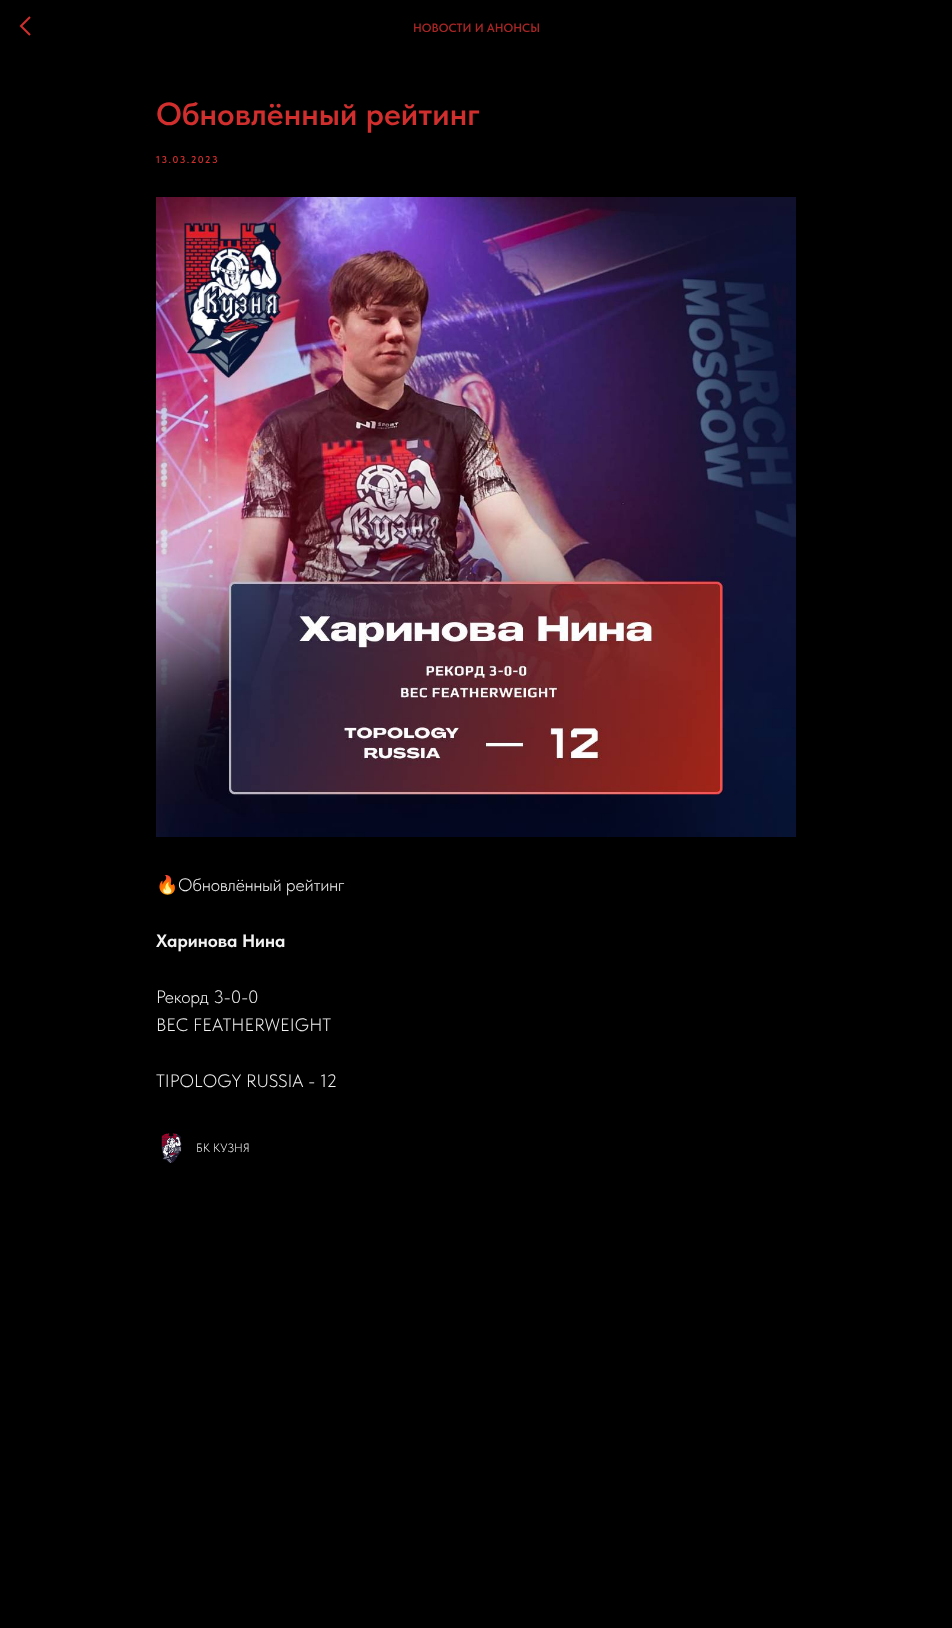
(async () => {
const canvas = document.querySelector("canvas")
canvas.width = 952
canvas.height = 1628
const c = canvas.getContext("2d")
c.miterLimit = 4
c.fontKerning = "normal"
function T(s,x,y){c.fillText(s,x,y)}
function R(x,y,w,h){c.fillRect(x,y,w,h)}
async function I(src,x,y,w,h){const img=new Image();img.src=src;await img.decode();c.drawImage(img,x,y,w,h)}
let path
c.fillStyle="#000"
R(0,0,952,1628)
path = new Path2D("M30 35l-9-9l9-9")
c.strokeStyle="#d12e2e"
c.lineWidth=2
c.stroke(path)
c.font="600 12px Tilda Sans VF"
c.fillStyle="#a72525"
T("НОВОСТИ И АНОНСЫ",413,32)
c.font="600 32px Tilda Sans VF"
c.fillStyle="#d12e2e"
T("Обновлённый рейтинг",156,125)
c.letterSpacing="1.5px"
c.font="600 10px Tilda Sans VF"
T("13.03.2023",156,163)
await I("1.png",156,197,640,640)
c.letterSpacing="0px"
c.font="18px Noto Color Emoji"
c.fillStyle="#f2f2f2"
T("🔥",156,891)
c.font="300 18px Tilda Sans VF"
T("Обновлённый рейтинг",178,891)
c.font="bold 18px Tilda Sans VF"
T("Харинова Нина",156,947)
c.font="300 18px Tilda Sans VF"
T("Рекорд 3-0-0",156,1003)
T("BEC FEATHERWEIGHT",156,1031)
T("TIPOLOGY RUSSIA - 12",156,1087)
await I("2.png",161,1133,21,30)
c.font="300 12px Tilda Sans VF"
T("БК КУЗНЯ",196,1152)
})()
